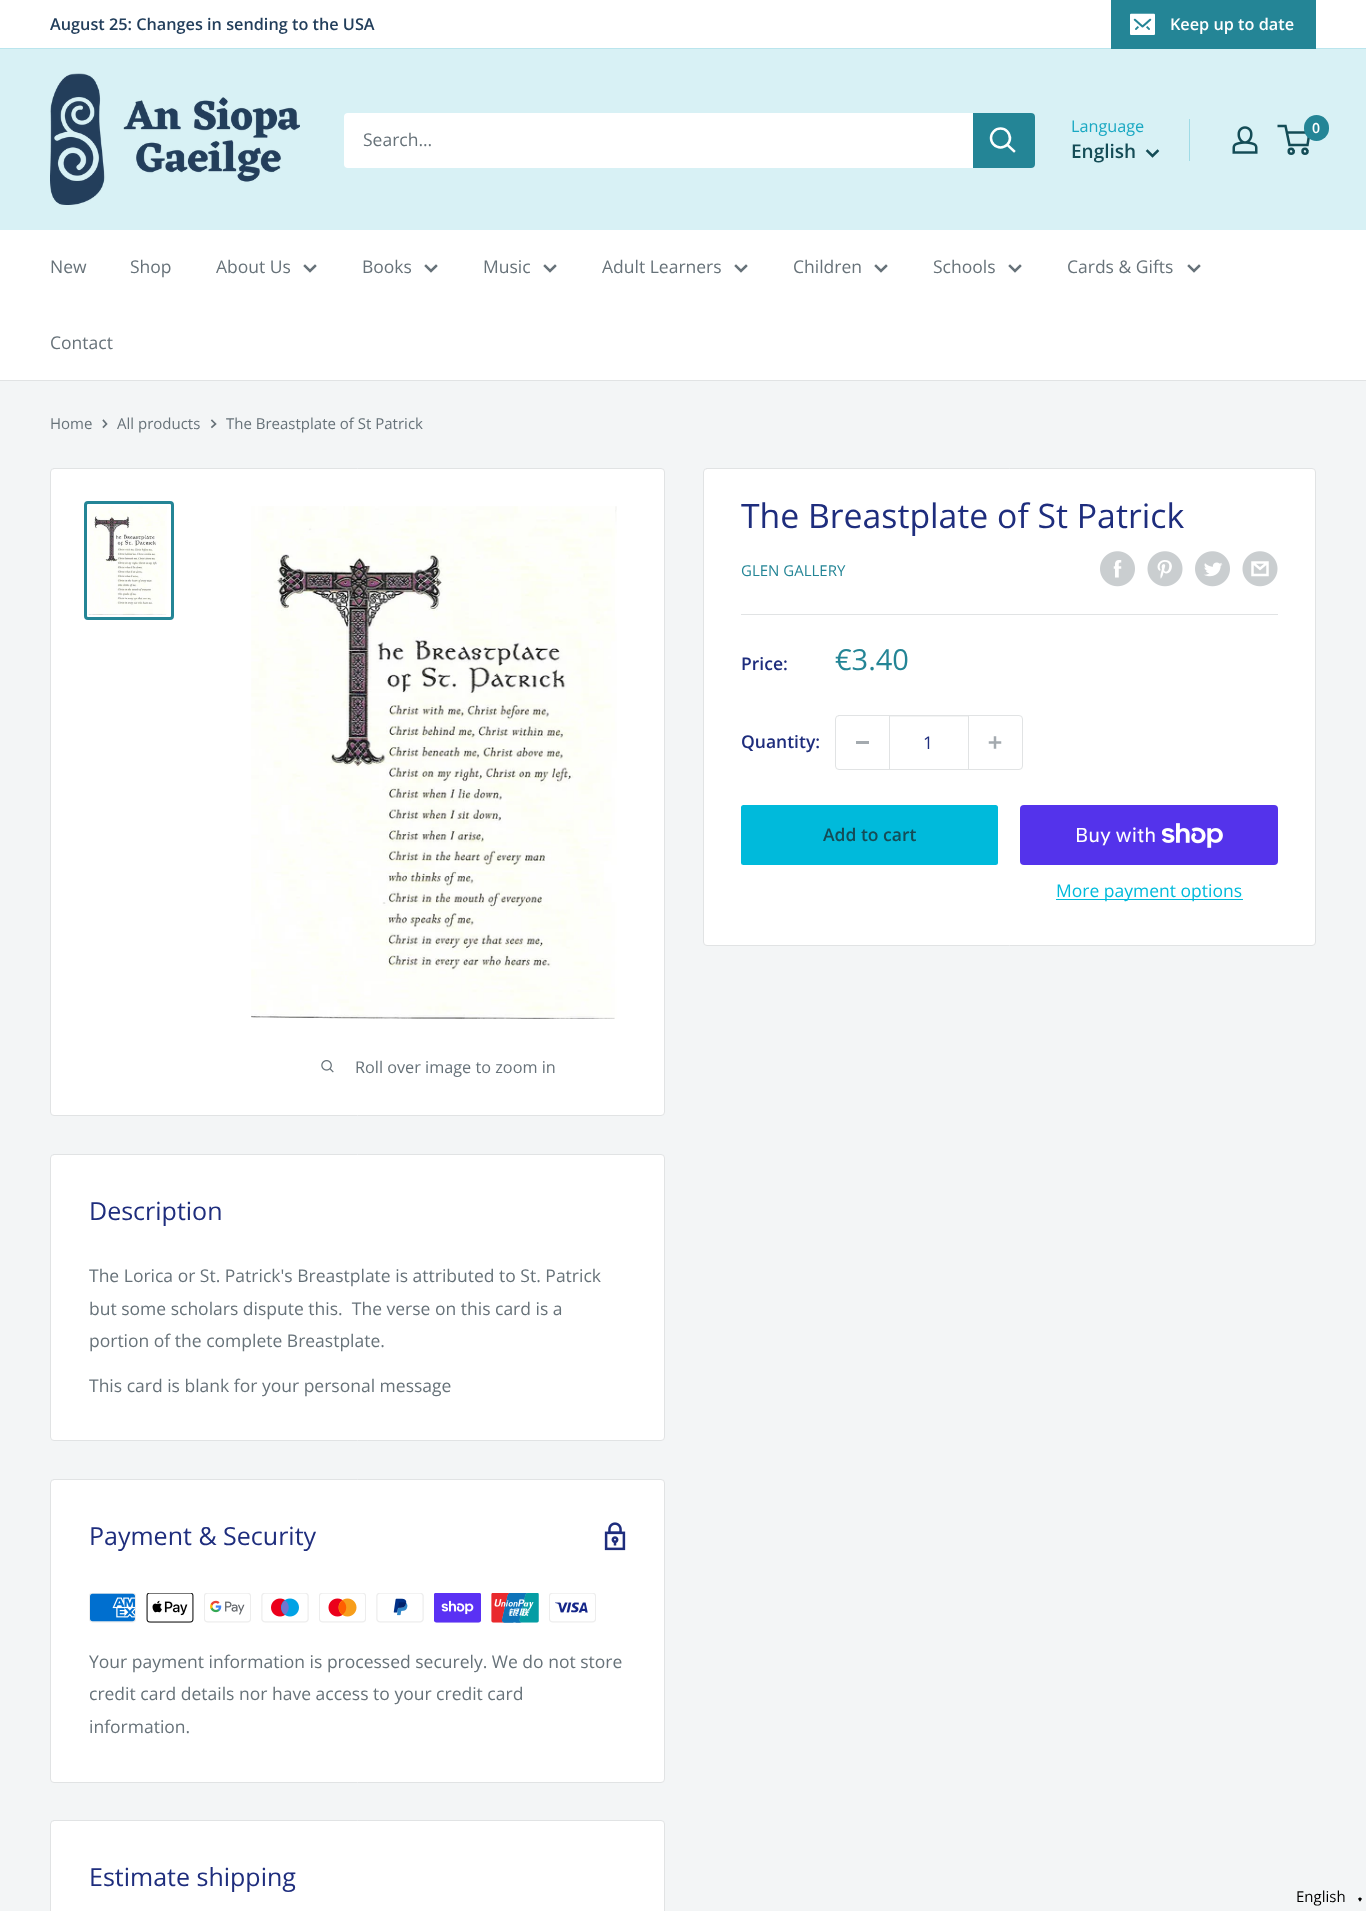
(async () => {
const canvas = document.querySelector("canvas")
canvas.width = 1366
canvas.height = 1911
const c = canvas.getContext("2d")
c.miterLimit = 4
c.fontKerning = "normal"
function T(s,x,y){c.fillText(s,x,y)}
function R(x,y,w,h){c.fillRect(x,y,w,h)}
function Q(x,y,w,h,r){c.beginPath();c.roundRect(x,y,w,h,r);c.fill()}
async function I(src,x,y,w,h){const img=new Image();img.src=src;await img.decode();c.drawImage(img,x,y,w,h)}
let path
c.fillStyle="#f3f5f6"
R(0,0,1366,1911)
c.fillStyle="#fff"
R(0,0,1366,48)
c.fillStyle="#bae5ed"
R(0,48,1366,1)
c.font="600 16.25px Open Sans"
c.fillStyle="#223e5b"
T("August 25: Changes in sending to the USA",50,30)
c.fillStyle="#248596"
path = new Path2D("M1111 1v48h205v-1h-205z")
c.fill(path)
R(1111,0,205,48)
await I("1.png",1130,13,25,22)
c.fillStyle="#fff"
T("Keep up to date",1170,30)
c.fillStyle="#d8f1f5"
R(0,49,1366,181)
await I("2.png",50,73,250,132)
c.fillStyle="#fff"
Q(344,113,691,55,4)
c.font="17.5px Open Sans"
c.fillStyle="#677279"
T("Search...",363,146)
c.fillStyle="#248596"
c.beginPath()
c.roundRect(973,113,62,55,[0,4,4,0])
c.fill()
path = new Path2D("M1014 151l-6.5-6")
c.strokeStyle="#fff"
c.lineWidth=2.5
c.lineCap="square"
c.stroke(path)
c.beginPath()
c.arc(1000.5,138,9.5,0,7)
c.stroke()
c.font="16.25px Open Sans"
c.fillStyle="#19a8c2"
T("Language",1071,132)
c.font="600 19px Open Sans"
c.fillStyle="#144c56"
T("English",1071,158)
path = new Path2D("M1157.5 151l-5 5l-5-5")
c.strokeStyle="#144c56"
c.stroke(path)
c.fillStyle="#9fdbe6"
R(1189,119,1,42)
await I("3.png",1232,126,26,28)
c.beginPath()
c.arc(1291.2,151.2,2.5,0,7)
c.stroke()
c.beginPath()
c.arc(1305,151.2,2.5,0,7)
c.stroke()
path = new Path2D("M1286.5 132.5h23l-2 12.5h-18l-4-19h-8")
c.lineCap="butt"
c.stroke(path)
c.fillStyle="#248596"
Q(1304,115,25,26,12.5)
c.font="600 14px Open Sans"
c.fillStyle="#fff"
T("0",1312,133)
R(0,230,1366,150)
c.fillStyle="#e1e3e4"
R(0,380,1366,1)
c.font="17.5px Open Sans"
c.fillStyle="#677279"
T("New",50,273)
T("Shop",130,273)
T("About Us",216,273)
path = new Path2D("M315 266l-5 5l-5-5")
c.strokeStyle="#677279"
c.lineCap="square"
c.stroke(path)
T("Books",362,273)
path = new Path2D("M436 266l-5 5l-5-5")
c.stroke(path)
T("Music",483,273)
path = new Path2D("M555 266l-5 5l-5-5")
c.stroke(path)
T("Adult Learners",602,273)
path = new Path2D("M746 266l-5 5l-5-5")
c.stroke(path)
T("Children",793,273)
path = new Path2D("M886 266l-5 5l-5-5")
c.stroke(path)
T("Schools",933,273)
path = new Path2D("M1020 266l-5 5l-5-5")
c.stroke(path)
T("Cards & Gifts",1067,273)
path = new Path2D("M1199 266l-5 5l-5-5")
c.stroke(path)
T("Contact",50,349)
c.font="15px Open Sans"
T("Home",50,429)
path = new Path2D("M103.5 420.5l3 3.5l-3 3")
c.lineWidth=1.7
c.stroke(path)
T("All products",117,429)
path = new Path2D("M212 420.5l3.5 3.5l-3.5 3")
c.stroke(path)
T("The Breastplate of St Patrick",226,429)
c.fillStyle="#fff"
c.beginPath()
c.roundRect(703.5,468.5,612,477,3.5)
c.fill()
c.strokeStyle="#e1e3e4"
c.lineWidth=1
c.stroke()
c.font="33.75px Open Sans"
c.fillStyle="#1e2d7d"
T("The Breastplate of St Patrick",741,528)
c.font="15px Open Sans"
c.fillStyle="#248596"
T("GLEN GALLERY",741,576)
await I("4.png",1100,551,35,36)
await I("5.png",1147,551,36,36)
await I("6.png",1195,551,35,36)
await I("7.png",1242,551,36,36)
c.fillStyle="#e1e3e4"
R(741,614,537,1)
c.font="600 17.5px Open Sans"
c.fillStyle="#1e2d7d"
T("Price:",741,670)
c.font="29px Open Sans"
c.fillStyle="#248596"
T("€3.40",835,670)
c.font="600 17.5px Open Sans"
c.fillStyle="#1e2d7d"
T("Quantity:",741,748)
c.beginPath()
c.roundRect(835.5,715.5,187,54,3.5)
c.stroke()
c.fillStyle="#a4aaaf"
R(856,741,13,3)
c.fillStyle="#f3f4f4"
R(890,716,78,1)
c.fillStyle="#e1e3e4"
R(968,716,1,53)
R(889,716,1,53)
c.font="17.5px Open Sans"
c.fillStyle="#1e2d7d"
T("1",923,749)
await I("8.png",988,736,14,13)
c.fillStyle="#00badb"
Q(741,805,257,60,2.5)
c.font="600 17.5px Open Sans"
c.fillStyle="#144c56"
T("Add to cart",823,841)
c.fillStyle="#5433eb"
Q(1020,805,258,60,4)
c.font="20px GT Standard"
c.fillStyle="#fff"
T("Buy with",1075,842)
await I("9.png",1161,823,62,25)
c.fillStyle="#00badb"
R(1056,899,187,1)
c.font="17.5px Open Sans"
T("More payment options",1056,897)
c.fillStyle="#fff"
c.beginPath()
c.roundRect(50.5,468.5,614,647,3.5)
c.fill()
c.stroke()
c.beginPath()
c.roundRect(85.5,502.5,87,116,2.5)
c.strokeStyle="#248596"
c.lineWidth=3
c.stroke()
await I("10.png",88,506,79,109)
await I("11.png",251,506,366,513)
await I("12.png",321,1060,13,13)
c.font="16.25px Open Sans"
c.fillStyle="#677279"
T("Roll over image to zoom in",355,1073)
c.fillStyle="#fff"
c.beginPath()
c.roundRect(50.5,1154.5,614,286,3.5)
c.fill()
c.strokeStyle="#e1e3e4"
c.lineWidth=1
c.stroke()
c.font="25px Open Sans"
c.fillStyle="#1e2d7d"
T("Description",89,1220)
c.font="17.5px Open Sans"
c.fillStyle="#677279"
T("The Lorica or St. Patrick's Breastplate is attributed to St. Patrick",89,1282)
T("but some scholars dispute this.  The verse on this card is a",89,1315)
T("portion of the complete Breastplate.",89,1347)
T("This card is blank for your personal message",89,1392)
c.fillStyle="#fff"
c.beginPath()
c.roundRect(50.5,1479.5,614,303,3.5)
c.fill()
c.stroke()
c.font="25px Open Sans"
c.fillStyle="#1e2d7d"
T("Payment & Security",89,1545)
await I("13.png",604,1522,22,29)
await I("14.png",89,1593,47,30)
await I("15.png",146,1593,48,30)
await I("16.png",204,1593,47,30)
await I("17.png",261,1593,48,30)
await I("18.png",319,1593,47,30)
await I("19.png",376,1593,48,30)
await I("20.png",434,1593,47,30)
await I("21.png",491,1593,48,30)
await I("22.png",549,1593,47,30)
c.font="17.5px Open Sans"
c.fillStyle="#677279"
T("Your payment information is processed securely. We do not store",89,1668)
T("credit card details nor have access to your credit card",89,1700)
T("information.",89,1733)
c.fillStyle="#fff"
c.beginPath()
c.roundRect(50.5,1820.5,614,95,3.5)
c.fill()
c.stroke()
c.font="25px Open Sans"
c.fillStyle="#1e2d7d"
T("Estimate shipping",89,1886)
c.font="15px Open Sans"
c.fillStyle="#000"
T("English",1296,1902)
path = new Path2D("M1359 1898l1 1.5l1-1.5")
c.strokeStyle="#000"
c.lineWidth=2.5
c.lineCap="butt"
c.stroke(path)
})()
